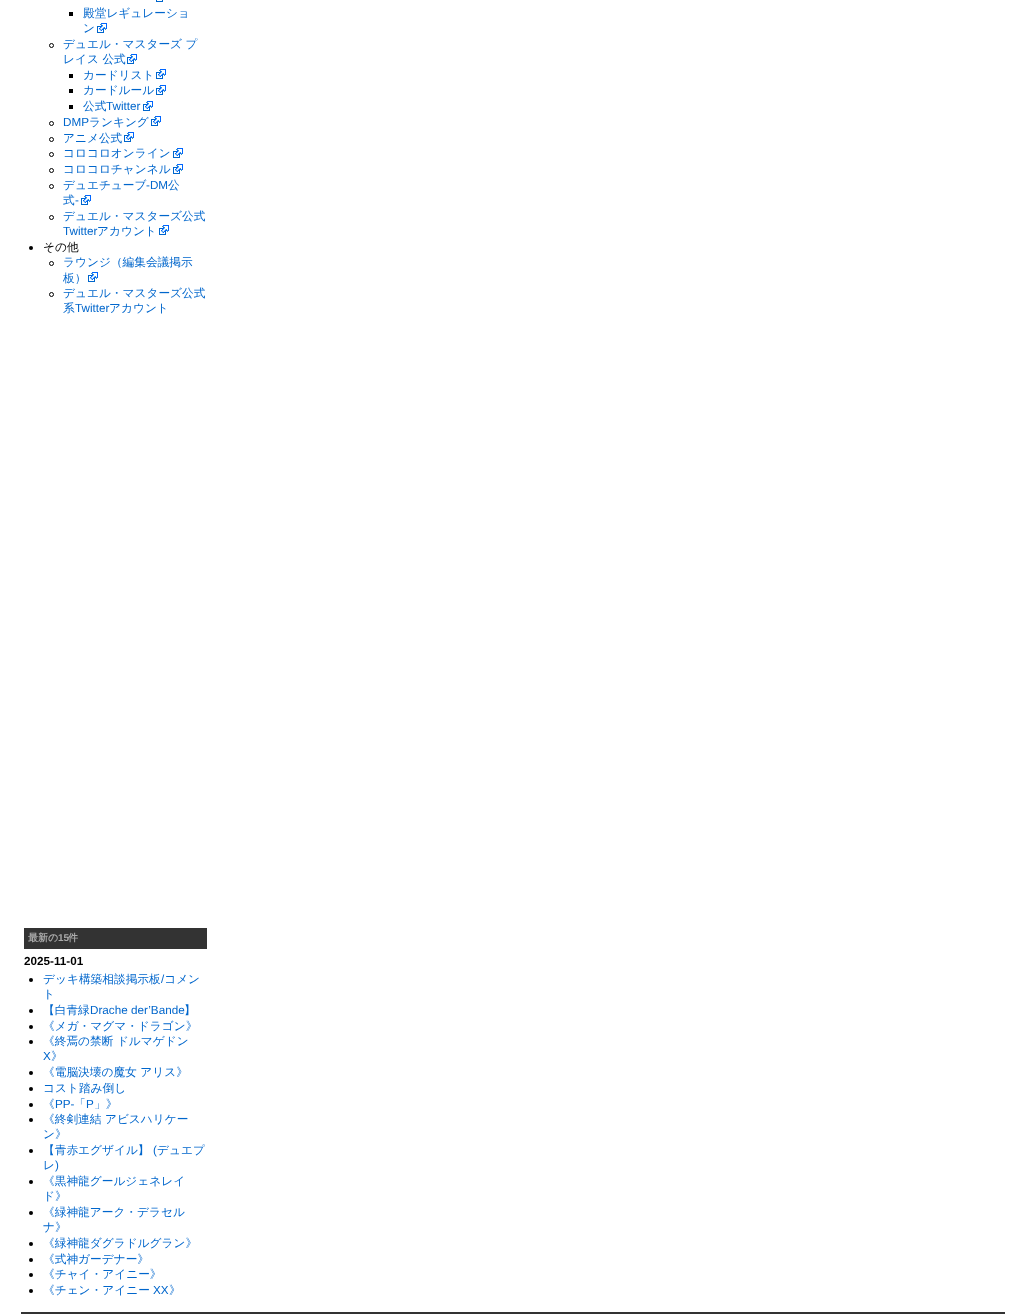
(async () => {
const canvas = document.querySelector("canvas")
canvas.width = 1025
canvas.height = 1316
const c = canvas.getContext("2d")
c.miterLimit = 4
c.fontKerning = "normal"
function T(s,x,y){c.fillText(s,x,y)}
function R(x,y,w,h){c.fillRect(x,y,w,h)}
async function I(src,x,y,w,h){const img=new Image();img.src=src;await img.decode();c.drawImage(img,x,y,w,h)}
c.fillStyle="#fff"
R(0,0,1025,1316)
await I("1.png",156,0,7,2)
c.fillStyle="#000"
R(69,12,4,4)
c.font="500 11.7px WenQuanYi Zen Hei"
c.fillStyle="#06c"
T("殿堂レギュレーショ",83,17)
T("ン",83,32)
await I("2.png",97,23,10,10)
c.beginPath()
c.arc(51.5,45.5,2,0,7)
c.strokeStyle="#000"
c.stroke()
T("デュエル・マスターズ プ",63,48)
T("レイス 公式",63,63)
await I("2.png",127,54,10,10)
c.fillStyle="#000"
R(69,74,4,4)
c.fillStyle="#06c"
T("カードリスト",83,79)
await I("2.png",156,69,10,10)
c.fillStyle="#000"
R(69,89,4,4)
c.fillStyle="#06c"
T("カードルール",83,94)
await I("2.png",156,85,10,10)
c.fillStyle="#000"
R(69,105,4,4)
c.fillStyle="#06c"
T("公式",83,110)
c.font="11.7px Liberation Sans"
T("Twitter",106,110)
await I("2.png",143,101,10,10)
c.beginPath()
c.arc(51.5,123.5,2,0,7)
c.stroke()
T("DMP",63,126)
c.font="500 11.7px WenQuanYi Zen Hei"
T("ランキング",89,126)
await I("2.png",151,116,10,10)
c.beginPath()
c.arc(51.5,139.5,2,0,7)
c.stroke()
T("アニメ公式",63,142)
await I("2.png",124,132,10,10)
c.beginPath()
c.arc(51.5,154.5,2,0,7)
c.stroke()
T("コロコロオンライン",63,157)
await I("2.png",173,148,10,10)
c.beginPath()
c.arc(51.5,170.5,2,0,7)
c.stroke()
T("コロコロチャンネル",63,173)
await I("2.png",173,164,10,10)
c.beginPath()
c.arc(51.5,186.5,2,0,7)
c.stroke()
T("デュエチューブ",63,189)
c.font="11.7px Liberation Sans"
T("-DM",146,189)
c.font="500 11.7px WenQuanYi Zen Hei"
T("公",168,189)
T("式",63,204)
c.font="11.7px Liberation Sans"
T("-",75,204)
await I("2.png",81,195,10,10)
c.beginPath()
c.arc(51.5,217.5,2,0,7)
c.stroke()
c.font="500 11.7px WenQuanYi Zen Hei"
T("デュエル・マスターズ公式",63,220)
c.font="11.7px Liberation Sans"
T("Twitter",63,235)
c.font="500 11.7px WenQuanYi Zen Hei"
T("アカウント",97,235)
await I("2.png",159,225,10,10)
c.fillStyle="#000"
c.beginPath()
c.arc(31,248,2,0,7)
c.fill()
T("その他",43,251)
c.beginPath()
c.arc(51.5,263.5,2,0,7)
c.stroke()
c.fillStyle="#06c"
T("ラウンジ（編集会議掲示",63,266)
T("板）",63,282)
await I("2.png",88,272,10,10)
c.beginPath()
c.arc(51.5,294.5,2,0,7)
c.stroke()
T("デュエル・マスターズ公式",63,297)
T("系",63,312)
c.font="11.7px Liberation Sans"
T("Twitter",75,312)
c.font="500 11.7px WenQuanYi Zen Hei"
T("アカウント",109,312)
c.fillStyle="#333"
R(24,928,183,21)
c.font="bold 10px WenQuanYi Zen Hei"
c.fillStyle="#aaa"
T("最新の",28,941)
c.font="bold 10px Liberation Sans"
T("15",58,941)
c.font="bold 10px WenQuanYi Zen Hei"
T("件",68,941)
c.font="bold 11.7px Liberation Sans"
c.fillStyle="#000"
T("2025-11-01",24,965)
c.font="500 11.7px WenQuanYi Zen Hei"
c.fillStyle="#06c"
T("デッキ構築相談掲示板 コメン",43,983)
c.fillStyle="#000"
c.beginPath()
c.arc(31,980,2,0,7)
c.fill()
c.font="11.7px Liberation Sans"
c.fillStyle="#06c"
T("/",161,983)
c.font="500 11.7px WenQuanYi Zen Hei"
T("ト",43,998)
c.fillStyle="#000"
c.beginPath()
c.arc(31,1011,2,0,7)
c.fill()
c.fillStyle="#06c"
T("【白青緑",43,1014)
c.font="11.7px Liberation Sans"
T("Drache der’Bande",90,1014)
c.font="500 11.7px WenQuanYi Zen Hei"
T("】",184,1014)
c.fillStyle="#000"
c.beginPath()
c.arc(31,1027,2,0,7)
c.fill()
c.fillStyle="#06c"
T("《メガ・マグマ・ドラゴン》",43,1030)
c.fillStyle="#000"
c.beginPath()
c.arc(31,1042,2,0,7)
c.fill()
c.fillStyle="#06c"
T("《終焉の禁断 ドルマゲドン",43,1045)
c.font="11.7px Liberation Sans"
T("X",43,1060)
c.font="500 11.7px WenQuanYi Zen Hei"
T("》",51,1060)
c.fillStyle="#000"
c.beginPath()
c.arc(31,1073,2,0,7)
c.fill()
c.fillStyle="#06c"
T("《電脳決壊の魔女 アリス》",43,1076)
c.fillStyle="#000"
c.beginPath()
c.arc(31,1089,2,0,7)
c.fill()
c.fillStyle="#06c"
T("コスト踏み倒し",43,1092)
c.fillStyle="#000"
c.beginPath()
c.arc(31,1105,2,0,7)
c.fill()
c.fillStyle="#06c"
T("《",43,1108)
c.font="11.7px Liberation Sans"
T("PP-",55,1108)
c.font="500 11.7px WenQuanYi Zen Hei"
T("「",74,1108)
c.font="11.7px Liberation Sans"
T("P",86,1108)
c.font="500 11.7px WenQuanYi Zen Hei"
T("」》",94,1108)
c.fillStyle="#000"
c.beginPath()
c.arc(31,1120,2,0,7)
c.fill()
c.fillStyle="#06c"
T("《終剣連結 アビスハリケー",43,1123)
T("ン》",43,1138)
c.fillStyle="#000"
c.beginPath()
c.arc(31,1151,2,0,7)
c.fill()
c.fillStyle="#06c"
T("【青赤エグザイル】",43,1154)
c.font="11.7px Liberation Sans"
T("(",153,1154)
c.font="500 11.7px WenQuanYi Zen Hei"
T("デュエプ",157,1154)
T("レ",43,1169)
c.font="11.7px Liberation Sans"
T(")",55,1169)
c.fillStyle="#000"
c.beginPath()
c.arc(31,1182,2,0,7)
c.fill()
c.font="500 11.7px WenQuanYi Zen Hei"
c.fillStyle="#06c"
T("《黒神龍グールジェネレイ",43,1185)
T("ド》",43,1200)
c.fillStyle="#000"
c.beginPath()
c.arc(31,1213,2,0,7)
c.fill()
c.fillStyle="#06c"
T("《緑神龍アーク・デラセル",43,1216)
T("ナ》",43,1231)
c.fillStyle="#000"
c.beginPath()
c.arc(31,1244,2,0,7)
c.fill()
c.fillStyle="#06c"
T("《緑神龍ダグラドルグラン》",43,1247)
c.fillStyle="#000"
c.beginPath()
c.arc(31,1260,2,0,7)
c.fill()
c.fillStyle="#06c"
T("《式神ガーデナー》",43,1263)
c.fillStyle="#000"
c.beginPath()
c.arc(31,1275,2,0,7)
c.fill()
c.fillStyle="#06c"
T("《チャイ・アイニー》",43,1278)
c.fillStyle="#000"
c.beginPath()
c.arc(31,1291,2,0,7)
c.fill()
c.fillStyle="#06c"
T("《チェン・アイニー",43,1294)
c.font="11.7px Liberation Sans"
T("XX",153,1294)
c.font="500 11.7px WenQuanYi Zen Hei"
T("》",169,1294)
c.fillStyle="#333"
R(21,1312,984,2)
})()
